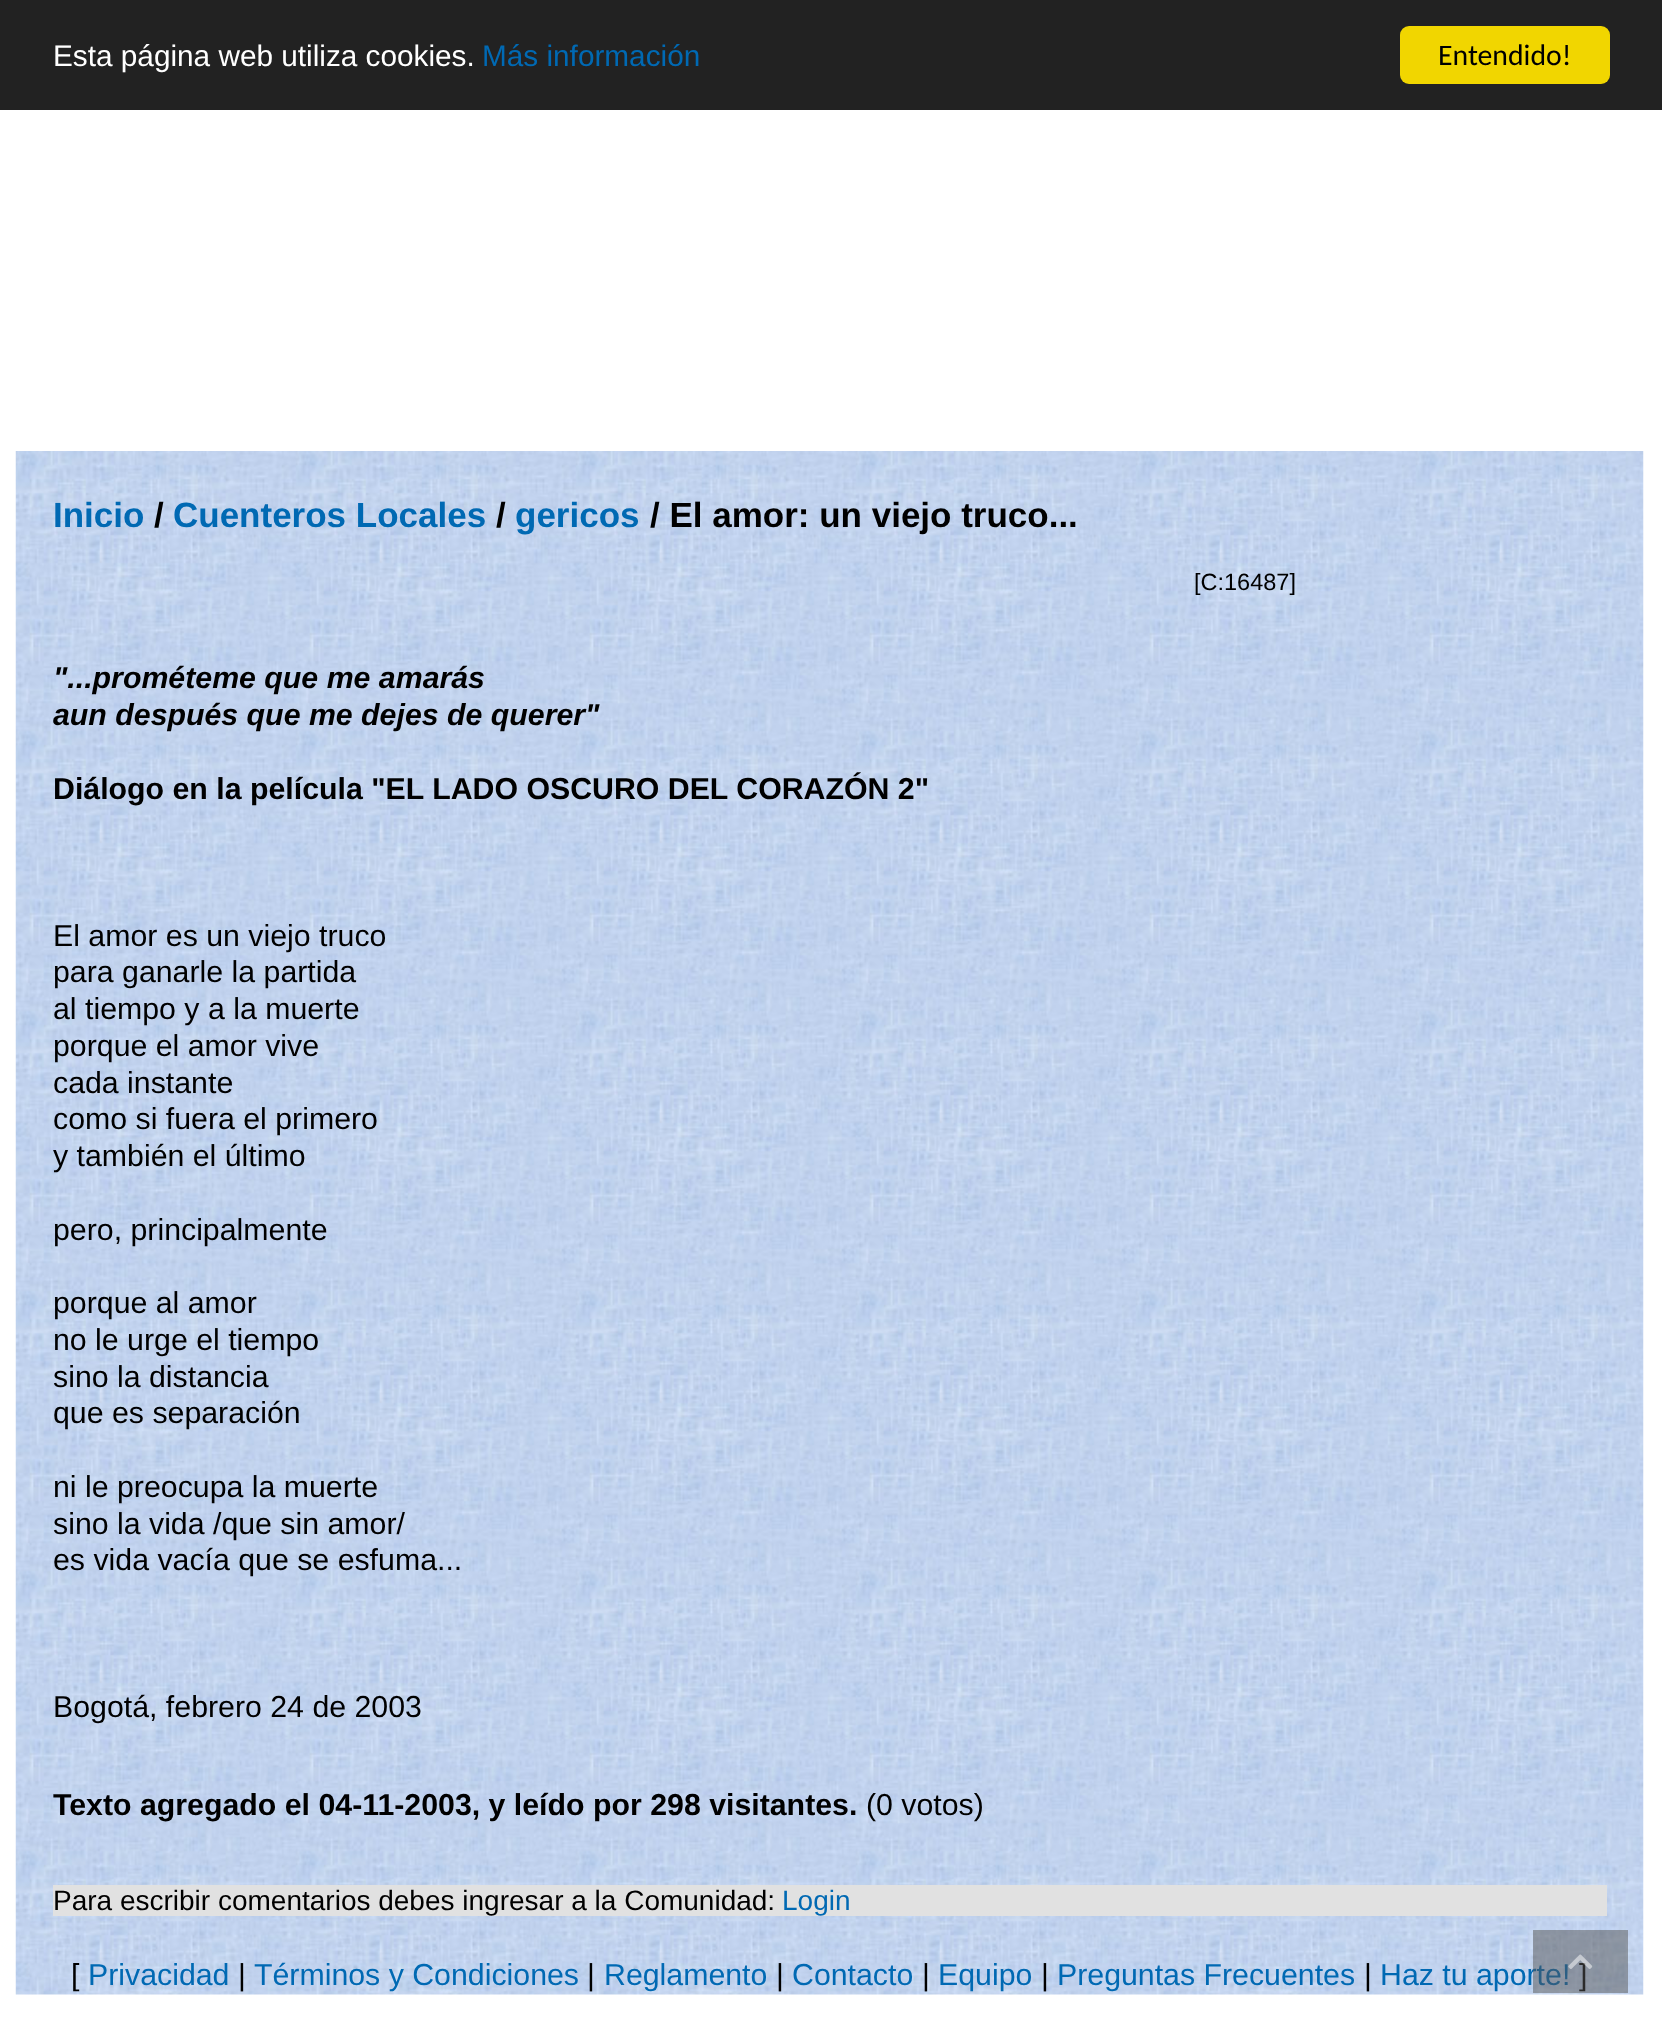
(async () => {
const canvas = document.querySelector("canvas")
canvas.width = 1662
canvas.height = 2027
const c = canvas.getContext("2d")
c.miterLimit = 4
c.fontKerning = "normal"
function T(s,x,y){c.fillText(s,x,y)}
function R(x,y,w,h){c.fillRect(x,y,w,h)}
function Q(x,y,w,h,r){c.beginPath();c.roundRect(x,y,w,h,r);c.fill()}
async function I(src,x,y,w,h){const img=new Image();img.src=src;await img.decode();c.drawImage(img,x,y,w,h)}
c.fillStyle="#fff"
R(0,0,1662,2027)
c.fillStyle="#222"
R(0,0,1662,110)
c.font="29.75px Liberation Sans"
c.fillStyle="#fff"
T("Esta página web utiliza cookies.",53,66)
c.fillStyle="#0069b3"
T("Más información",482,66)
c.fillStyle="#f1d600"
Q(1400,26,210,58,9)
c.font="29.75px Carlito"
c.fillStyle="#000"
T("Entendido!",1438,65)
await I("1.png",15,451,1629,1544)
c.font="bold 35px Liberation Sans"
c.fillStyle="#0069b3"
T("Inicio",53,527)
c.fillStyle="#000"
T("/",154,527)
c.fillStyle="#0069b3"
T("Cuenteros Locales",173,527)
c.fillStyle="#000"
T("/",496,527)
c.fillStyle="#0069b3"
T("gericos",515,527)
c.fillStyle="#000"
T("/ El amor: un viejo truco...",650,527)
c.font="23.5px Liberation Sans"
T("[C:16487]",1194,590)
c.font="italic bold 30.3px Liberation Sans"
T("\"...prométeme que me amarás",53,688)
T("aun después que me dejes de querer\"",53,725)
c.font="bold 30.3px Liberation Sans"
T("Diálogo en la película \"EL LADO OSCURO DEL CORAZÓN 2\"",53,799)
c.font="30.3px Liberation Sans"
T("El amor es un viejo truco",53,946)
T("para ganarle la partida",53,982)
T("al tiempo y a la muerte",53,1019)
T("porque el amor vive",53,1056)
T("cada instante",53,1093)
T("como si fuera el primero",53,1129)
T("y también el último",53,1166)
T("pero, principalmente",53,1240)
T("porque al amor",53,1313)
T("no le urge el tiempo",53,1350)
T("sino la distancia",53,1387)
T("que es separación",53,1423)
T("ni le preocupa la muerte",53,1497)
T("sino la vida /que sin amor/",53,1534)
T("es vida vacía que se esfuma...",53,1570)
T("Bogotá, febrero 24 de 2003",53,1717)
c.font="bold 30.3px Liberation Sans"
T("Texto agregado el 04-11-2003, y leído por 298 visitantes.",53,1815)
c.font="30.3px Liberation Sans"
T("(0 votos)",866,1815)
c.fillStyle="#e1e1e1"
R(53,1885,1554,31)
c.font="28px Liberation Sans"
c.fillStyle="#000"
T("Para escribir comentarios debes ingresar a la Comunidad:",53,1910)
c.fillStyle="#0069b3"
T("Login",782,1910)
c.font="30.3px Liberation Sans"
c.fillStyle="#000"
T("[",71,1985)
c.fillStyle="#0069b3"
T("Privacidad",88,1985)
c.fillStyle="#000"
T("|",238,1985)
c.fillStyle="#0069b3"
T("Términos y Condiciones",254,1985)
c.fillStyle="#000"
T("|",587,1985)
c.fillStyle="#0069b3"
T("Reglamento",604,1985)
c.fillStyle="#000"
T("|",776,1985)
c.fillStyle="#0069b3"
T("Contacto",792,1985)
c.fillStyle="#000"
T("|",922,1985)
c.fillStyle="#0069b3"
T("Equipo",938,1985)
c.fillStyle="#000"
T("|",1041,1985)
c.fillStyle="#0069b3"
T("Preguntas Frecuentes",1057,1985)
c.fillStyle="#000"
T("|",1364,1985)
c.fillStyle="#0069b3"
T("Haz tu aporte!",1380,1985)
c.fillStyle="#000"
T("]",1579,1985)
c.fillStyle="#55555580"
R(1533,1930,95,63)
await I("2.png",1568,1954,25,15)
})()
